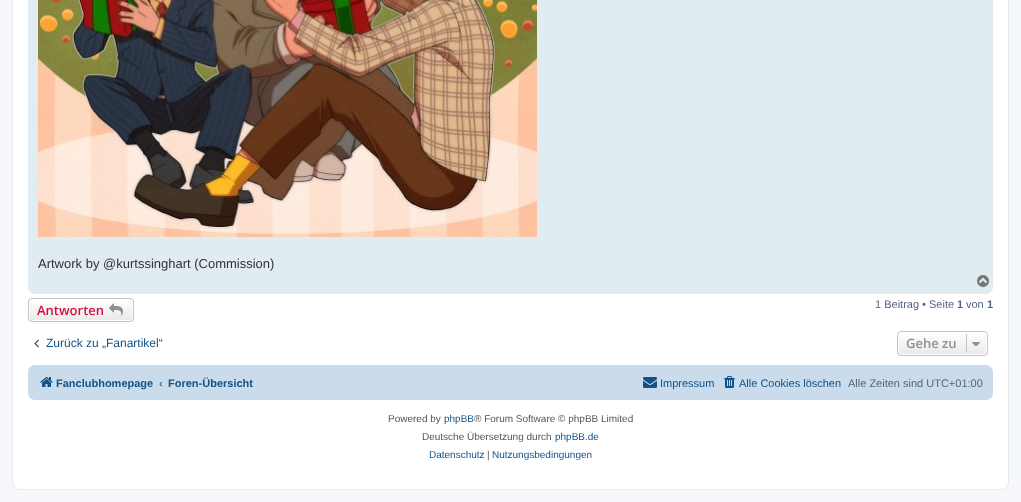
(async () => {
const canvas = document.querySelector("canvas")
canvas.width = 1021
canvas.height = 502
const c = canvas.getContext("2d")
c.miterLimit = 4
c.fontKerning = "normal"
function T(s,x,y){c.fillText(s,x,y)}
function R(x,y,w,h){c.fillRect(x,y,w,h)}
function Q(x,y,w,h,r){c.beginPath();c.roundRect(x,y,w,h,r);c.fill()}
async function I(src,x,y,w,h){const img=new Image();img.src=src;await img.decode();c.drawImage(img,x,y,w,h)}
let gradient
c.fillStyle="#f5f7fa"
R(0,0,1021,502)
c.fillStyle="#fff"
c.beginPath()
c.roundRect(12.5,-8.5,996,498,7.5)
c.fill()
c.strokeStyle="#e6e9ed"
c.stroke()
c.fillStyle="#e1ebf2"
Q(28,-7,965,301,7)
await I("1.png",38,0,499,237)
c.font="13px Liberation Sans"
c.fillStyle="#333"
T("Artwork by @kurtssinghart (Commission)",38,268)
await I("2.png",977,275,12,12)
c.save()
c.beginPath()
c.roundRect(28,298,106,24,4)
c.clip()
gradient = c.createLinearGradient(81,299,81,321)
gradient.addColorStop(0,"#fff")
gradient.addColorStop(1,"#e9e9e9")
c.fillStyle = gradient
R(28,299,106,22)
c.restore()
c.beginPath()
c.roundRect(29.5,299.5,103,21,2.5)
c.strokeStyle="#fff"
c.stroke()
c.beginPath()
c.roundRect(28.5,298.5,105,23,3.5)
c.strokeStyle="#c7c3bf"
c.stroke()
c.font="600 13px Open Sans"
c.fillStyle="#d31141"
T("Antworten",37,315)
await I("3.png",109,303,14,13)
c.font="11px Liberation Sans"
c.fillStyle="#536482"
T("1 Beitrag • Seite",875,308)
c.font="bold 11px Liberation Sans"
T("1",957,308)
c.font="11px Liberation Sans"
T("von",966,308)
c.font="bold 11px Liberation Sans"
T("1",987,308)
await I("4.png",34,339,5,9)
c.font="12px Liberation Sans"
c.fillStyle="#105289"
T("Zurück zu „Fanartikel“",46,347)
c.save()
c.beginPath()
c.roundRect(897,331,91,25,4)
c.clip()
gradient = c.createLinearGradient(943,332,943,355)
gradient.addColorStop(0,"#fff")
gradient.addColorStop(1,"#e9e9e9")
c.fillStyle = gradient
R(897,332,91,23)
c.restore()
c.beginPath()
c.roundRect(898.5,332.5,88,22,2.5)
c.strokeStyle="#fff"
c.stroke()
c.beginPath()
c.roundRect(897.5,331.5,90,24,3.5)
c.strokeStyle="#c7c3bf"
c.stroke()
c.font="600 13px Open Sans"
c.fillStyle="#8f8f8f"
T("Gehe zu",906,348)
c.fillStyle="#c7c3bf"
R(966,334,1,18)
await I("5.png",972,342,8,5)
c.fillStyle="#cadceb"
Q(28,365,965,35,7)
await I("6.png",40,377,13,10)
c.font="bold 11px Liberation Sans"
c.fillStyle="#105289"
T("Fanclubhomepage",56,387)
c.fillStyle="#536482"
T("‹",159,387)
c.fillStyle="#105289"
T("Foren-Übersicht",168,387)
await I("7.png",643,377,14,11)
c.font="11px Liberation Sans"
T("Impressum",660,387)
await I("8.png",724,376,11,12)
T("Alle Cookies löschen",739,387)
c.fillStyle="#536482"
T("Alle Zeiten sind UTC+01:00",848,387)
c.font="10px Liberation Sans"
c.fillStyle="#555"
T("Powered by",388,422)
c.fillStyle="#105289"
T("phpBB",444,422)
c.fillStyle="#555"
T("® Forum Software © phpBB Limited",474,422)
T("Deutsche Übersetzung durch",422,440)
c.fillStyle="#105289"
T("phpBB.de",555,440)
T("Datenschutz",429,458)
c.fillStyle="#555"
T("|",487,458)
c.fillStyle="#105289"
T("Nutzungsbedingungen",492,458)
})()
